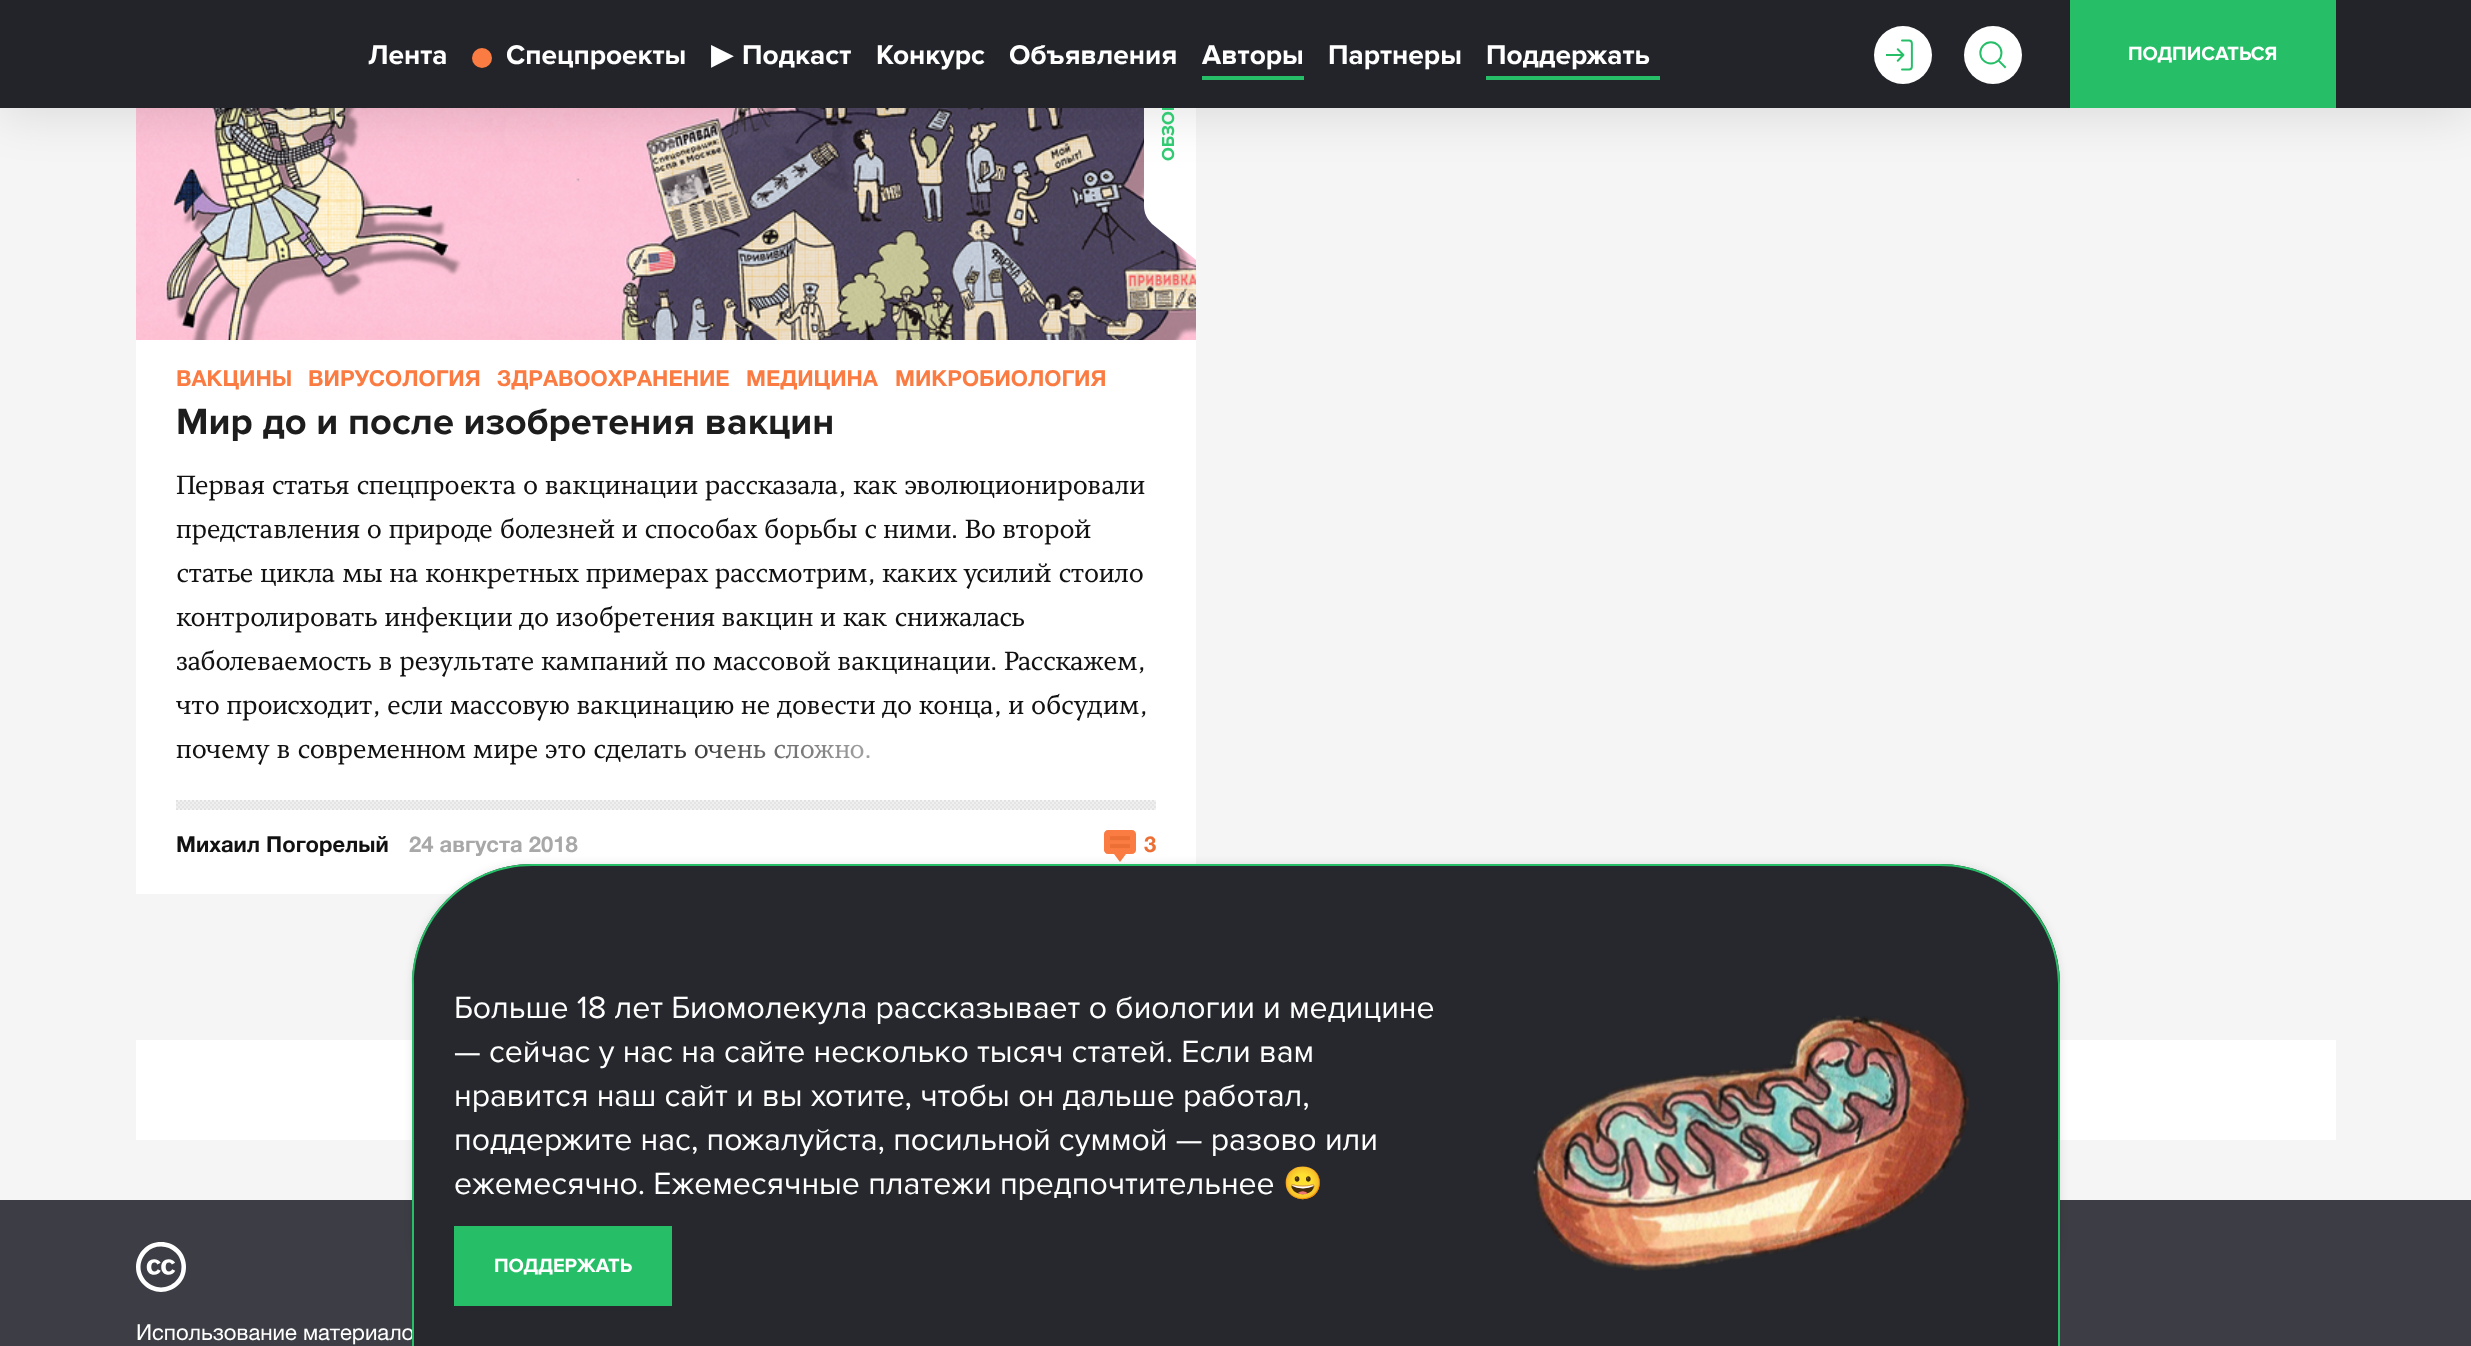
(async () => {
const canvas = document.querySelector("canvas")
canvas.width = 2471
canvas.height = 1346
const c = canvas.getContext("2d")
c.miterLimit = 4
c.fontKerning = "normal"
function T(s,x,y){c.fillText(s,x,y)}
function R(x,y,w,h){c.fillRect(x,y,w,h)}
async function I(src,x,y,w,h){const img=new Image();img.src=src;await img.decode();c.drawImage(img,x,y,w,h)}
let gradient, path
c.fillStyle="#f5f5f5"
R(0,0,2471,1346)
await I("3.png",136,108,1060,232)
c.fillStyle="#fff"
path = new Path2D("M1196 0v260l-44-36c-5-5-8-11-8-18v-152c0-7 3-13 8-18z")
c.fill(path,"evenodd")
c.fillStyle="#0000001a"
c.filter="blur(24px)"
c.beginPath()
c.rect(0,8,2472,108)
c.fill()
c.filter="none"
c.font="bold 18px Proxima Nova"
c.fillStyle="#31c972"
c.save()
c.translate(1174,161)
c.rotate(-90 * Math.PI / 180)
c.fillText("ОБЗОР",0,0)
c.restore()
c.fillStyle="#222429"
R(0,0,2471,108)
c.font="bold 28px Proxima Nova"
c.fillStyle="#fff"
T("Лента",368,64)
c.fillStyle="#fa7c42"
c.beginPath()
c.arc(482,58,10,0,7)
c.fill()
c.fillStyle="#fff"
T("Спецпроекты",506,64)
c.font="bold 28px DejaVu Sans"
T("▶",711,64)
c.font="bold 28px Proxima Nova"
T("Подкаст",742,64)
T("Конкурс",876,64)
T("Объявления",1009,64)
c.fillStyle="#26bf68"
R(1202,76,102,4)
c.fillStyle="#fff"
T("Авторы",1202,64)
T("Партнеры",1328,64)
c.fillStyle="#26bf68"
R(1486,76,174,4)
c.fillStyle="#fff"
T("Поддержать",1486,64)
c.beginPath()
c.arc(1903,55,29,0,7)
c.fill()
await I("1.png",1886,39,27,32)
c.beginPath()
c.arc(1993,55,29,0,7)
c.fill()
await I("2.png",1979,41,28,28)
c.fillStyle="#26bf68"
R(2070,0,266,108)
c.font="bold 20px Proxima Nova"
c.fillStyle="#fff"
T("ПОДПИСАТЬСЯ",2128,60)
R(136,340,1060,554)
c.font="bold 22px Helvetica Neue"
c.fillStyle="#fa7c42"
T("ВАКЦИНЫ",176,386)
T("ВИРУСОЛОГИЯ",308,386)
T("ЗДРАВООХРАНЕНИЕ",497,386)
T("МЕДИЦИНА",746,386)
T("МИКРОБИОЛОГИЯ",895,386)
c.font="bold 38px Proxima Nova"
c.fillStyle="#1d1d1d"
T("Мир до и после изобретения вакцин",176,434)
c.font="26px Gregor"
c.fillStyle="#111"
T("Первая статья спецпроекта о вакцинации рассказала, как эволюционировали",176,494)
T("представления о природе болезней и способах борьбы с ними. Во второй",176,538)
T("статье цикла мы на конкретных примерах рассмотрим, каких усилий стоило",176,582)
T("контролировать инфекции до изобретения вакцин и как снижалась",176,626)
T("заболеваемость в результате кампаний по массовой вакцинации. Расскажем,",176,670)
T("что происходит, если массовую вакцинацию не довести до конца, и обсудим,",176,714)
T("почему в современном мире это сделать очень сложно.",176,758)
gradient = c.createLinearGradient(626,750,1156,750)
gradient.addColorStop(0,"#ffffff00")
gradient.addColorStop(.75,"#fff")
c.fillStyle = gradient
R(635,744,235,15)
await I("4.png",176,800,980,10)
c.font="bold 22px Helvetica Neue"
c.fillStyle="#111"
T("Михаил Погорелый",176,852)
c.fillStyle="#a8a8a8"
T("24 августа 2018",409,852)
await I("5.png",1104,830,32,32)
c.fillStyle="#ec6f36"
T("3",1144,852)
c.fillStyle="#fff"
R(136,1040,2200,100)
c.fillStyle="#3d3e45"
R(0,1200,2471,146)
c.fillStyle="#0000001a"
c.filter="blur(4px)"
c.beginPath()
c.roundRect(412,864,1648,482,120)
c.fill()
c.filter="none"
c.font="22px Helvetica Neue"
c.fillStyle="#fff"
T("Использование материало",136,1340)
c.fillStyle="#26282d"
c.beginPath()
c.roundRect(412,864,1648,482,[120,120,0,0])
c.fill()
c.fillStyle="#26bf68"
path = new Path2D("M532 864h1408c66 0 120 54 120 120v362h-1648v-362c0-66 54-120 120-120zm0 2h1408c65 0 118 53 118 118v362h-1644v-362c0-65 53-118 118-118z")
c.fill(path,"evenodd")
c.font="32px Proxima Nova"
c.fillStyle="#fff"
T("Больше 18 лет Биомолекула рассказывает о биологии и медицине",454,1018)
T("— сейчас у нас на сайте несколько тысяч статей. Если вам",454,1062)
T("нравится наш сайт и вы хотите, чтобы он дальше работал,",454,1106)
T("поддержите нас, пожалуйста, посильной суммой — разово или",454,1150)
T("ежемесячно. Ежемесячные платежи предпочтительнее",454,1194)
c.font="32px Noto Color Emoji"
T("😀",1283,1194)
c.fillStyle="#26bf68"
R(454,1226,218,80)
c.font="bold 20px Proxima Nova"
c.fillStyle="#fff"
T("ПОДДЕРЖАТЬ",494,1272)
await I("6.png",1532,1015,438,256)
await I("7.png",136,1242,50,50)
})()
